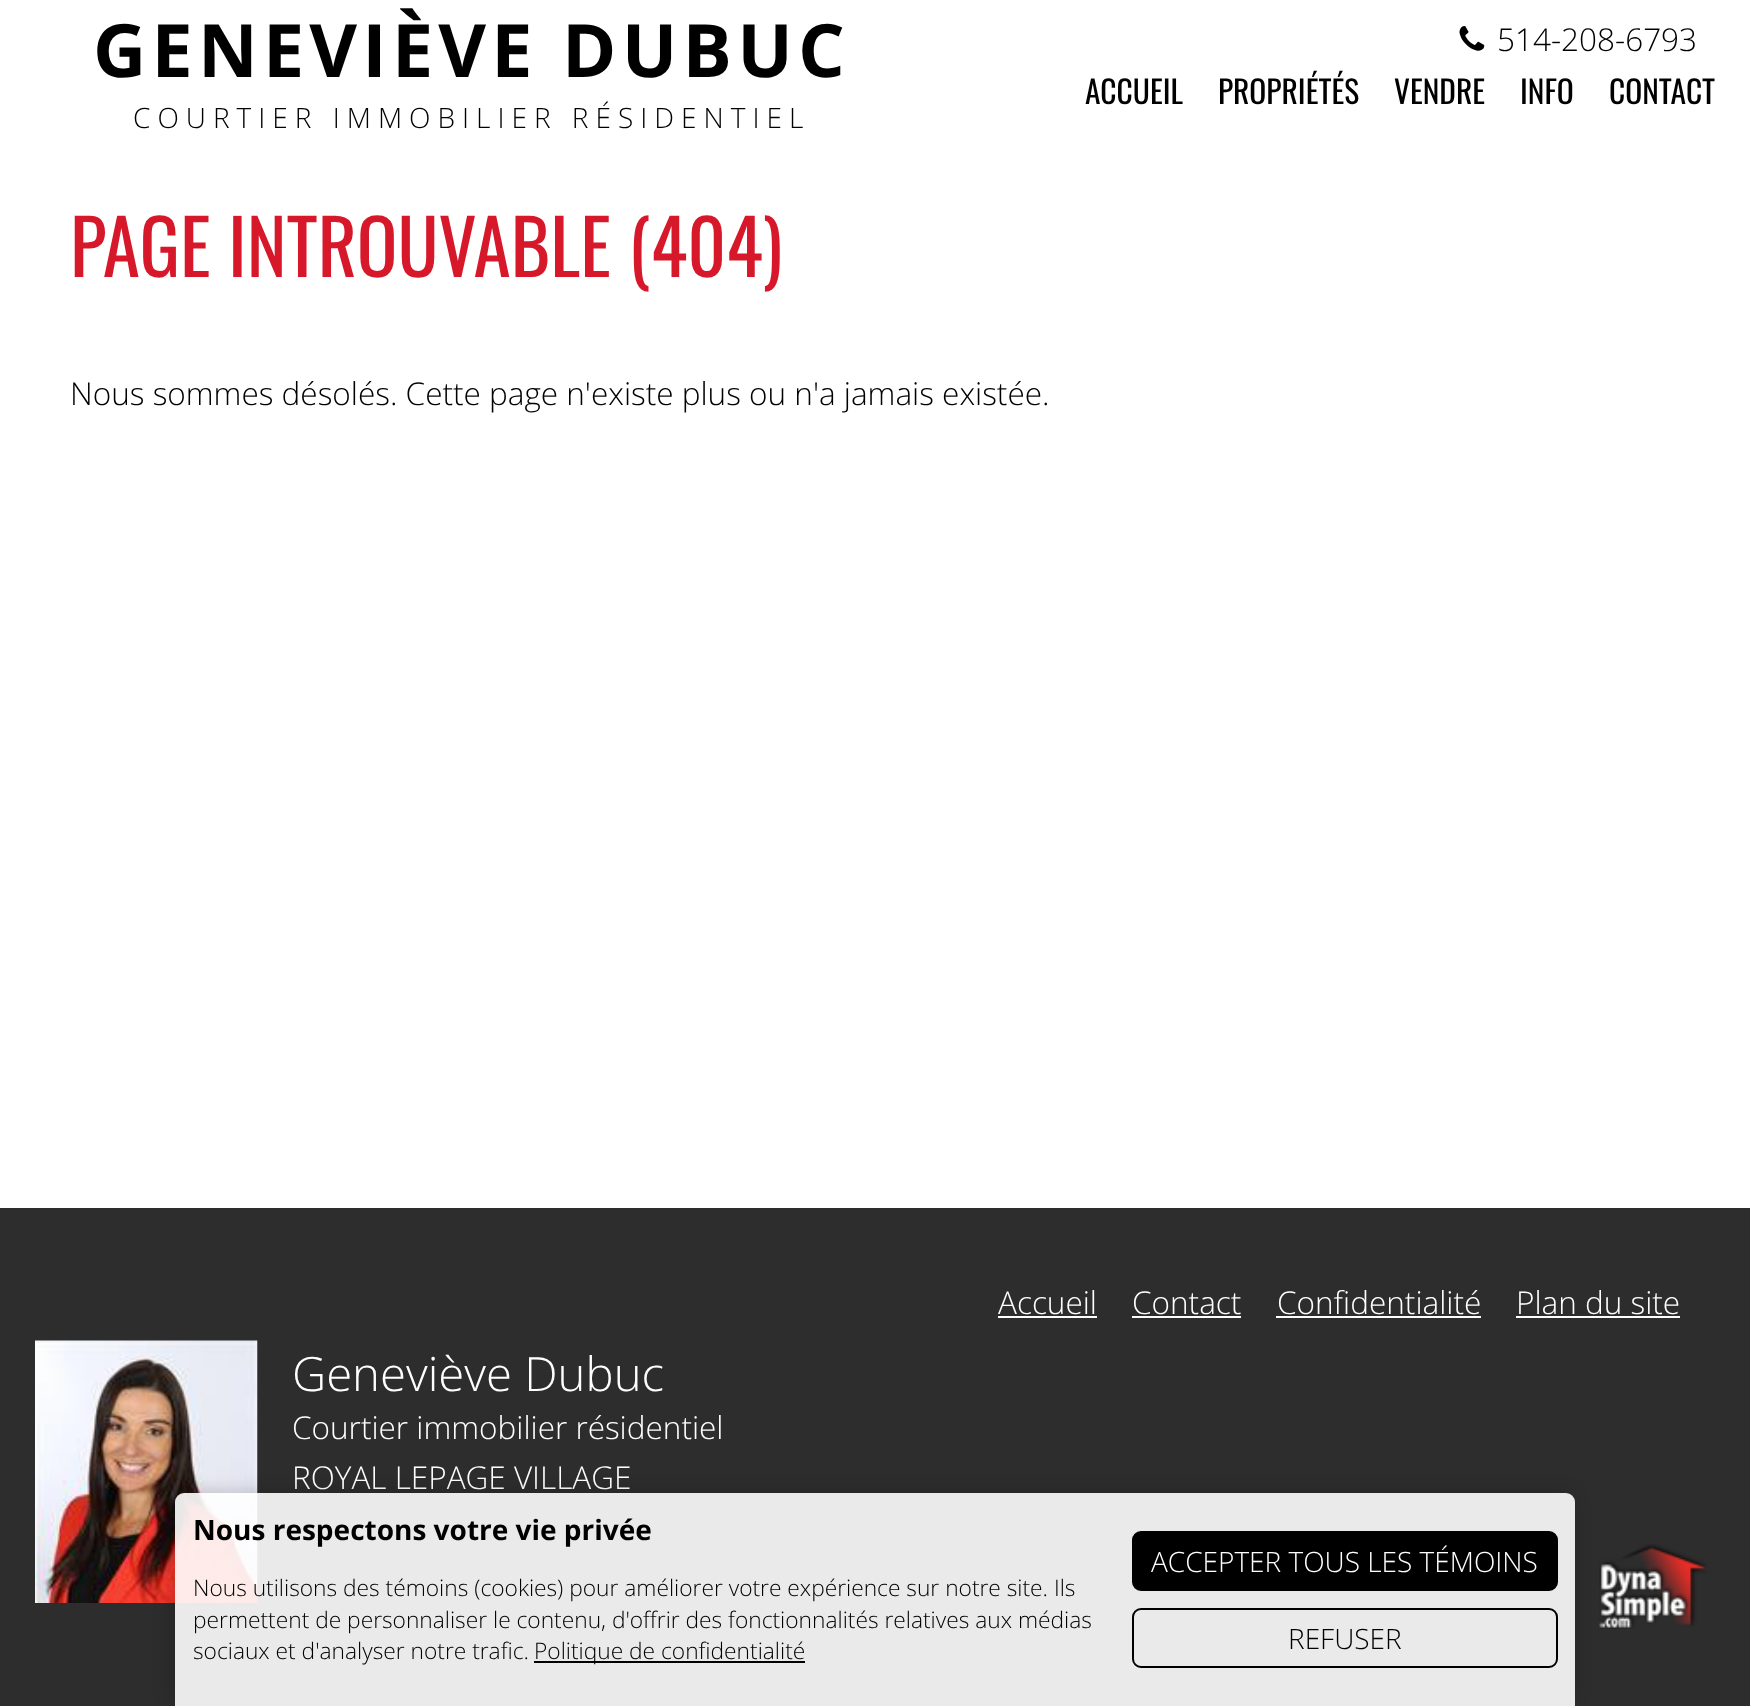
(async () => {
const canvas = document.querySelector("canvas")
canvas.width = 1750
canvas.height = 1706
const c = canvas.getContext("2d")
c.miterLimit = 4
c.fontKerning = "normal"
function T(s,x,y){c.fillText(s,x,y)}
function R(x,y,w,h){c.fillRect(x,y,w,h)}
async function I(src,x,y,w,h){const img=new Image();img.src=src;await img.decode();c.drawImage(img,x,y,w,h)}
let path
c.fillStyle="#fff"
R(0,0,1750,1706)
c.letterSpacing="5.25px"
c.font="bold 73.5px Open Sans"
c.fillStyle="#000"
T("GENEVIÈVE DUBUC",93,77)
c.letterSpacing="7px"
c.font="300 28px Open Sans"
T("COURTIER IMMOBILIER RÉSIDENTIEL",133,128)
await I("1.png",1459,26,26,25)
c.letterSpacing="0px"
c.font="300 31.5px Open Sans"
T("514-208-6793",1497,51)
c.font="31.5px Oswald"
T("ACCUEIL",1085,104)
T("PROPRIÉTÉS",1218,104)
T("VENDRE",1394,104)
T("INFO",1520,104)
T("CONTACT",1609,104)
c.font="75.5px Oswald"
c.fillStyle="#d7182a"
T("PAGE INTROUVABLE (404)",70,277)
c.font="300 31.5px Open Sans"
c.fillStyle="#000"
T("Nous sommes désolés. Cette page n'existe plus ou n'a jamais existée.",70,405)
c.fillStyle="#2d2d2d"
R(0,1208,1750,498)
c.fillStyle="#fff"
T("Accueil",998,1314)
R(998,1316,99,2)
T("Contact",1132,1314)
R(1132,1316,109,2)
T("Confidentialité",1277,1314)
R(1276,1316,205,2)
T("Plan du site",1516,1314)
R(1516,1316,164,2)
await I("2.png",35,1340,223,263)
c.font="300 47.25px Open Sans"
T("Geneviève Dubuc",292,1391)
c.font="300 31.5px Open Sans"
T("Courtier immobilier résidentiel",292,1439)
T("ROYAL LEPAGE VILLAGE",292,1489)
await I("3.png",1599,1544,108,85)
c.save()
path = new Path2D("M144 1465h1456v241h-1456zm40 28h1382c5 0 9 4 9 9v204h-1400v-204c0-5 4-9 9-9z")
c.clip(path,"evenodd")
c.fillStyle="#00000033"
c.filter="blur(9px)"
c.beginPath()
c.roundRect(172,1493,1400,213,9)
c.fill()
c.filter="none"
c.restore()
c.fillStyle="#ffffffe6"
c.beginPath()
c.roundRect(175,1493,1400,213,[9,9,0,0])
c.fill()
c.font="bold 28px Open Sans"
c.fillStyle="#000"
T("Nous respectons votre vie privée",193,1540)
c.font="300 22.75px Open Sans"
T("Nous utilisons des témoins (cookies) pour améliorer votre expérience sur notre site. Ils",193,1596)
T("permettent de personnaliser le contenu, d'offrir des fonctionnalités relatives aux médias",193,1628)
T("sociaux et d'analyser notre trafic.",193,1659)
R(534,1661,271,2)
T("Politique de confidentialité",534,1659)
c.beginPath()
c.roundRect(1133,1532,424,58,8)
c.fill()
c.strokeStyle="#000"
c.lineWidth=2
c.stroke()
c.font="300 28px Open Sans"
c.fillStyle="#fff"
T("ACCEPTER TOUS LES TÉMOINS",1151,1572)
c.beginPath()
c.roundRect(1133,1609,424,58,8)
c.stroke()
c.fillStyle="#000"
T("REFUSER",1288,1649)
})()
